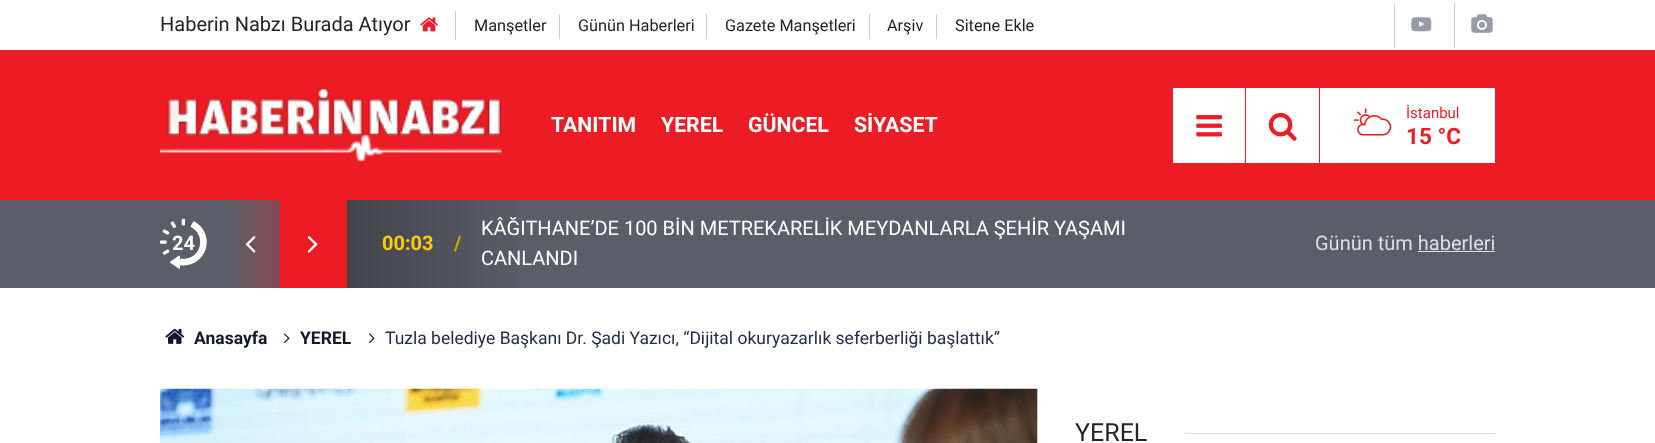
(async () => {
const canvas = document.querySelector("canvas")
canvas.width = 1655
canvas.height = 443
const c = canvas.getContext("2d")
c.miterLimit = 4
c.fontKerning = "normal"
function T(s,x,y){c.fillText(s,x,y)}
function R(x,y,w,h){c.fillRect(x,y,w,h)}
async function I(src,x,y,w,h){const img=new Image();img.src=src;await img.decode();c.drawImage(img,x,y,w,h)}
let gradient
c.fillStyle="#fff"
R(0,0,1655,443)
c.fillStyle="#ed1c24"
R(0,50,1655,150)
c.font="20px Roboto"
c.fillStyle="#212529"
T("Haberin Nabzı Burada Atıyor",160,31)
c.fillStyle="#ccc"
R(455,11,1,29)
await I("1.png",420,17,18,15)
R(559,14,1,25)
c.font="16.25px Roboto"
c.fillStyle="#212529"
T("Manşetler",474,31)
c.fillStyle="#ccc"
R(706,14,1,25)
c.fillStyle="#212529"
T("Günün Haberleri",578,31)
c.fillStyle="#ccc"
R(869,14,1,25)
c.fillStyle="#212529"
T("Gazete Manşetleri",725,31)
c.fillStyle="#ccc"
R(936,14,1,25)
c.fillStyle="#212529"
T("Arşiv",887,31)
T("Sitene Ekle",955,31)
c.fillStyle="#ccc"
R(1394,3,1,45)
await I("2.png",1411,17,21,15)
R(1454,3,1,45)
await I("3.png",1471,14,22,19)
await I("4.png",160,87,342,75)
c.font="bold 21.25px Roboto"
c.fillStyle="#fff"
T("TANITIM",551,132)
T("YEREL",661,132)
T("GÜNCEL",748,132)
T("SİYASET",854,132)
R(1173,88,72,75)
await I("5.png",1196,115,26,22)
R(1246,88,73,75)
await I("6.png",1268,112,29,29)
R(1320,88,175,75)
await I("7.png",1353,108,39,28)
c.font="15px Roboto"
c.fillStyle="#ed1c24"
T("İstanbul",1406,118)
c.font="bold 22.5px Roboto"
T("15 °C",1406,144)
c.fillStyle="#5b5e68"
R(0,200,1655,88)
gradient = c.createLinearGradient(160,244,1495,244)
gradient.addColorStop(.05,"#5b5e68")
gradient.addColorStop(.09,"#874a54")
gradient.addColorStop(.09,"#ed1c24")
gradient.addColorStop(.14,"#ed1c24")
gradient.addColorStop(.14,"#43454d")
gradient.addColorStop(.28,"#5b5e68")
c.fillStyle = gradient
R(230,200,287,88)
await I("8.png",160,218,47,51)
c.font="bold 20px Roboto"
c.fillStyle="#fff"
T("24",172,250)
await I("9.png",245,236,11,17)
await I("10.png",307,236,11,17)
c.fillStyle="#ffcb05"
T("00:03",382,250)
c.fillStyle="#d1a600"
T("/",454,250)
c.font="20px Roboto"
c.fillStyle="#fff"
T("KÂĞITHANE’DE 100 BİN METREKARELİK MEYDANLARLA ŞEHİR YAŞAMI",481,235)
T("CANLANDI",481,265)
c.fillStyle="#dedfe1"
T("Günün tüm haberleri",1315,250)
R(1418,251,77,1)
await I("11.png",165,328,20,16)
c.font="bold 17.5px Roboto"
c.fillStyle="#12182a"
T("Anasayfa",194,344)
await I("12.png",283,333,7,11)
T("YEREL",300,344)
await I("12.png",368,333,7,11)
c.font="17.5px Roboto"
c.fillStyle="#212c4e"
T("Tuzla belediye Başkanı Dr. Şadi Yazıcı, “Dijital okuryazarlık seferberliği başlattık”",385,344)
c.fillStyle="#f8f8f8"
R(1037,389,1,54)
await I("13.png",160,388,878,55)
c.font="25px Roboto"
c.fillStyle="#212529"
T("YEREL",1075,441)
c.fillStyle="#d9dbe2"
R(1185,433,310,1)
})()
